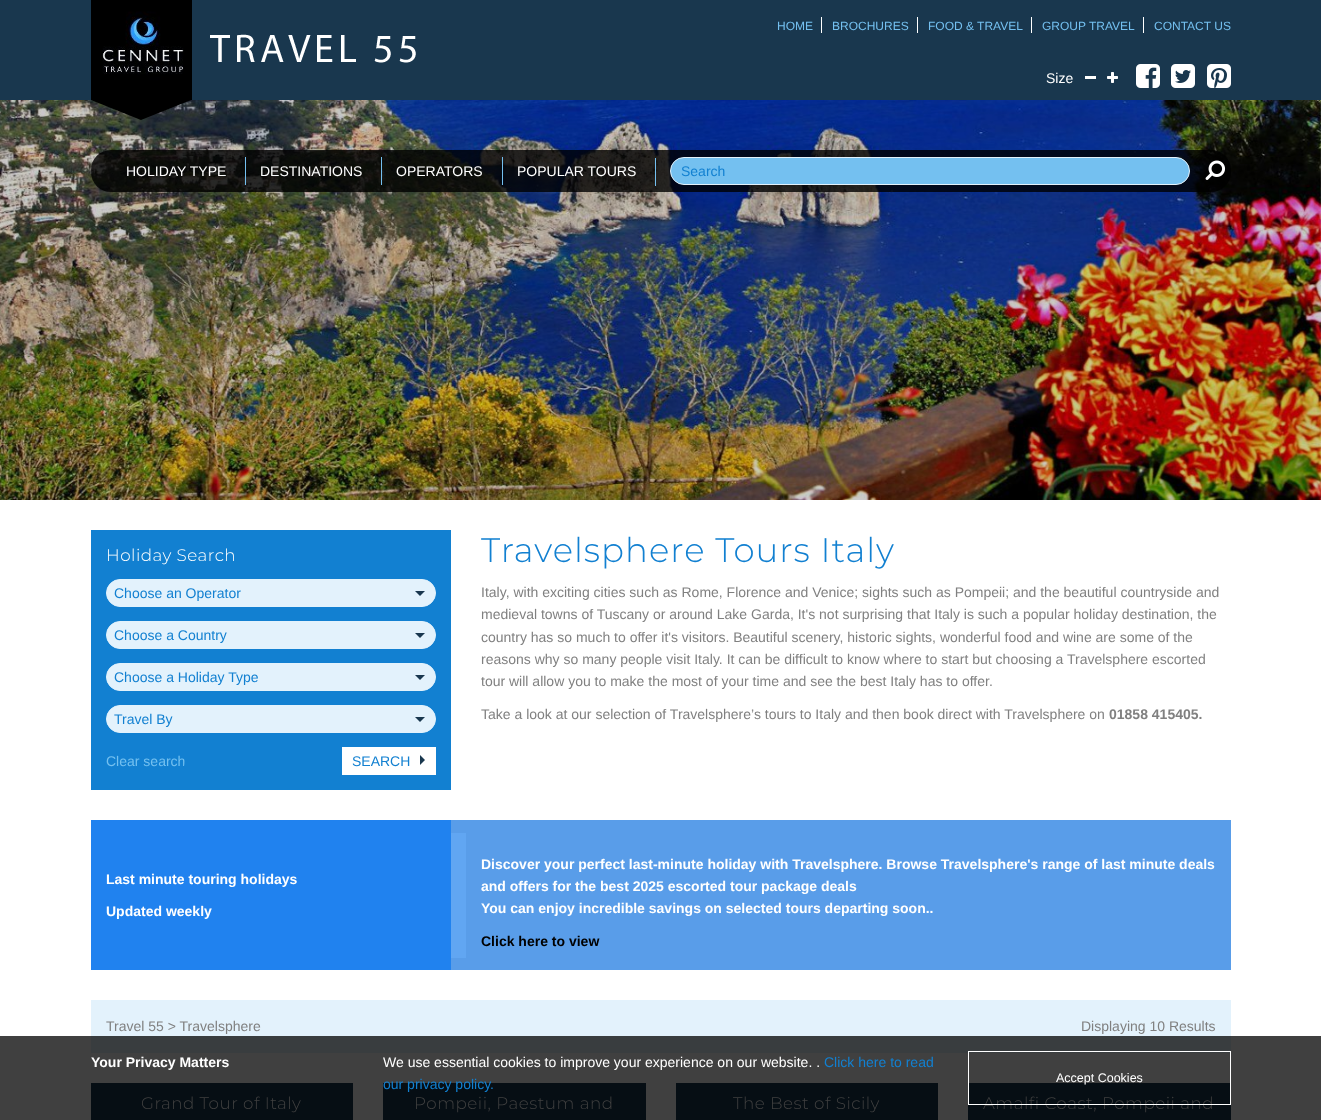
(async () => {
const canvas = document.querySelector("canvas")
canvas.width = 1321
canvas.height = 1120
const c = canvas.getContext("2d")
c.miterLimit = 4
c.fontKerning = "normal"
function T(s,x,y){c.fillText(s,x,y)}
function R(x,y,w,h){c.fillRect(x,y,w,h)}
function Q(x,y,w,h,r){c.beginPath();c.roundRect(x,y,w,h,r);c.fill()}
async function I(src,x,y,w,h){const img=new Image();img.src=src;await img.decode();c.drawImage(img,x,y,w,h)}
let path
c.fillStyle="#fff"
R(0,0,1321,1120)
c.fillStyle="#404040"
R(0,1036,1321,84)
c.fillStyle="#19374e"
R(0,0,1321,100)
await I("1.png",91,0,101,100)
await I("2.png",210,34,206,29)
await I("7.png",0,100,1321,400)
c.fillStyle="#000"
path = new Path2D("M91 100h100l-50 20z")
c.fill(path)
c.font="12px Liberation Sans"
c.fillStyle="#74c0f0"
T("HOME",777,30)
c.fillStyle="#fff"
R(821,17,1,16)
c.fillStyle="#74c0f0"
T("BROCHURES",832,30)
c.fillStyle="#fff"
R(917,17,1,16)
c.fillStyle="#74c0f0"
T("FOOD & TRAVEL",928,30)
c.fillStyle="#fff"
R(1031,17,1,16)
c.fillStyle="#74c0f0"
T("GROUP TRAVEL",1042,30)
c.fillStyle="#fff"
R(1143,17,1,16)
c.fillStyle="#74c0f0"
T("CONTACT US",1154,30)
c.font="14px Liberation Sans"
c.fillStyle="#fff"
T("Size",1046,83)
R(1085,76,11,3)
await I("3.png",1107,72,11,11)
await I("4.png",1136,64,24,24)
await I("5.png",1171,64,24,24)
await I("6.png",1207,64,24,24)
c.fillStyle="#000000cc"
Q(91,150,1140,42,20)
c.fillStyle="#fff"
T("HOLIDAY TYPE",126,176)
c.fillStyle="#74c0f0"
R(245,157,1,28)
c.fillStyle="#fff"
T("DESTINATIONS",260,176)
c.fillStyle="#74c0f0"
R(381,157,1,28)
c.fillStyle="#fff"
T("OPERATORS",396,176)
c.fillStyle="#74c0f0"
R(502,157,1,28)
c.fillStyle="#fff"
T("POPULAR TOURS",517,176)
c.fillStyle="#74c0f0"
R(655,158,1,28)
c.beginPath()
c.roundRect(670.5,157.5,519,27,13.5)
c.fill()
c.strokeStyle="#e3f2fc"
c.stroke()
c.fillStyle="#1280d1"
T("Search",681,176)
await I("8.png",1205,160,21,20)
R(91,530,360,260)
c.letterSpacing="0.5px"
c.font="300 16.75px Montserrat"
c.fillStyle="#fff"
T("Holiday Search",106,561)
c.fillStyle="#e3f2fc"
c.beginPath()
c.roundRect(106.5,579.5,329,27,13.5)
c.fill()
c.stroke()
c.letterSpacing="0px"
c.font="14px Liberation Sans"
c.fillStyle="#1280d1"
T("Choose an Operator",114,598)
c.fillStyle="#19374e"
path = new Path2D("M415 591h10l-5 5z")
c.fill(path)
c.fillStyle="#e3f2fc"
c.beginPath()
c.roundRect(106.5,621.5,329,27,13.5)
c.fill()
c.stroke()
c.fillStyle="#1280d1"
T("Choose a Country",114,640)
c.fillStyle="#19374e"
path = new Path2D("M415 633h10l-5 5z")
c.fill(path)
c.fillStyle="#e3f2fc"
c.beginPath()
c.roundRect(106.5,663.5,329,27,13.5)
c.fill()
c.stroke()
c.fillStyle="#1280d1"
T("Choose a Holiday Type",114,682)
c.fillStyle="#19374e"
path = new Path2D("M415 675h10l-5 5z")
c.fill(path)
c.fillStyle="#e3f2fc"
c.beginPath()
c.roundRect(106.5,705.5,329,27,13.5)
c.fill()
c.stroke()
c.fillStyle="#1280d1"
T("Travel By",114,724)
c.fillStyle="#19374e"
path = new Path2D("M415 717h10l-5 5z")
c.fill(path)
c.save()
c.beginPath()
c.roundRect(106,747,79,28,14)
c.clip()
c.fillStyle="#74c0f0"
T("Clear search",106,766)
c.restore()
c.fillStyle="#fff"
R(342,747,94,28)
c.fillStyle="#1280d1"
T("SEARCH",352,766)
c.fillStyle="#19374e"
path = new Path2D("M420 765v-10l5 5z")
c.fill(path)
c.letterSpacing="1px"
c.font="300 34px Montserrat"
c.fillStyle="#1280d1"
T("Travelsphere Tours Italy",481,562)
c.letterSpacing="0px"
c.font="14px Liberation Sans"
c.fillStyle="#808080"
T("Italy, with exciting cities such as Rome, Florence and Venice; sights such as Pompeii; and the beautiful countryside and",481,597)
T("medieval towns of Tuscany or around Lake Garda, It's not surprising that Italy is such a popular holiday destination, the",481,619)
T("country has so much to offer it's visitors. Beautiful scenery, historic sights, wonderful food and wine are some of the",481,642)
T("reasons why so many people visit Italy. It can be difficult to know where to start but choosing a Travelsphere escorted",481,664)
T("tour will allow you to make the most of your time and see the best Italy has to offer.",481,686)
T("Take a look at our selection of Travelsphere’s tours to Italy and then book direct with Travelsphere on",481,719)
c.font="bold 14px Liberation Sans"
T("01858 415405.",1109,719)
c.fillStyle="#2082ef"
R(91,820,360,150)
c.fillStyle="#fff"
T("Last minute touring holidays",106,884)
T("Updated weekly",106,916)
c.fillStyle="#599de9"
R(451,820,780,150)
c.fillStyle="#61a6f2"
R(451,833,15,125)
c.fillStyle="#fff"
T("Discover your perfect last-minute holiday with Travelsphere. Browse Travelsphere's range of last minute deals",481,869)
T("and offers for the best 2025 escorted tour package deals",481,891)
T("You can enjoy incredible savings on selected tours departing soon..",481,913)
c.fillStyle="#000"
T("Click here to view",481,946)
c.fillStyle="#e3f2fc"
R(91,1000,1140,36)
c.fillStyle="#393d3f"
R(91,1036,1140,17)
c.font="14px Liberation Sans"
c.fillStyle="#808080"
T("Travel 55 > Travelsphere",106,1031)
T("Displaying 10 Results",1081,1031)
c.font="bold 14px Liberation Sans"
c.fillStyle="#fff"
T("Your Privacy Matters",91,1067)
c.font="14px Liberation Sans"
T("We use essential cookies to improve your experience on our website. .",383,1067)
c.fillStyle="#1280d1"
T("Click here to read",824,1067)
c.fillStyle="#060e14"
R(383,1083,263,37)
c.fillStyle="#1280d1"
T("our privacy policy.",383,1089)
c.fillStyle="#060e14"
R(968,1083,263,37)
c.letterSpacing="0.5px"
c.font="300 16.75px Montserrat"
c.fillStyle="#404040"
T("Amalfi Coast, Pompeii and",983,1109)
c.strokeStyle="#fff"
c.strokeRect(968.5,1051.5,262,53)
c.letterSpacing="0px"
c.font="12.5px Liberation Sans"
c.fillStyle="#fff"
T("Accept Cookies",1056,1082)
c.fillStyle="#060e14"
R(91,1083,262,37)
c.letterSpacing="0.5px"
c.font="300 16.75px Montserrat"
c.fillStyle="#404040"
T("Grand Tour of Italy",141,1109)
T("Pompeii, Paestum and",414,1109)
c.fillStyle="#060e14"
R(676,1083,262,37)
c.fillStyle="#404040"
T("The Best of Sicily",733,1109)
})()
